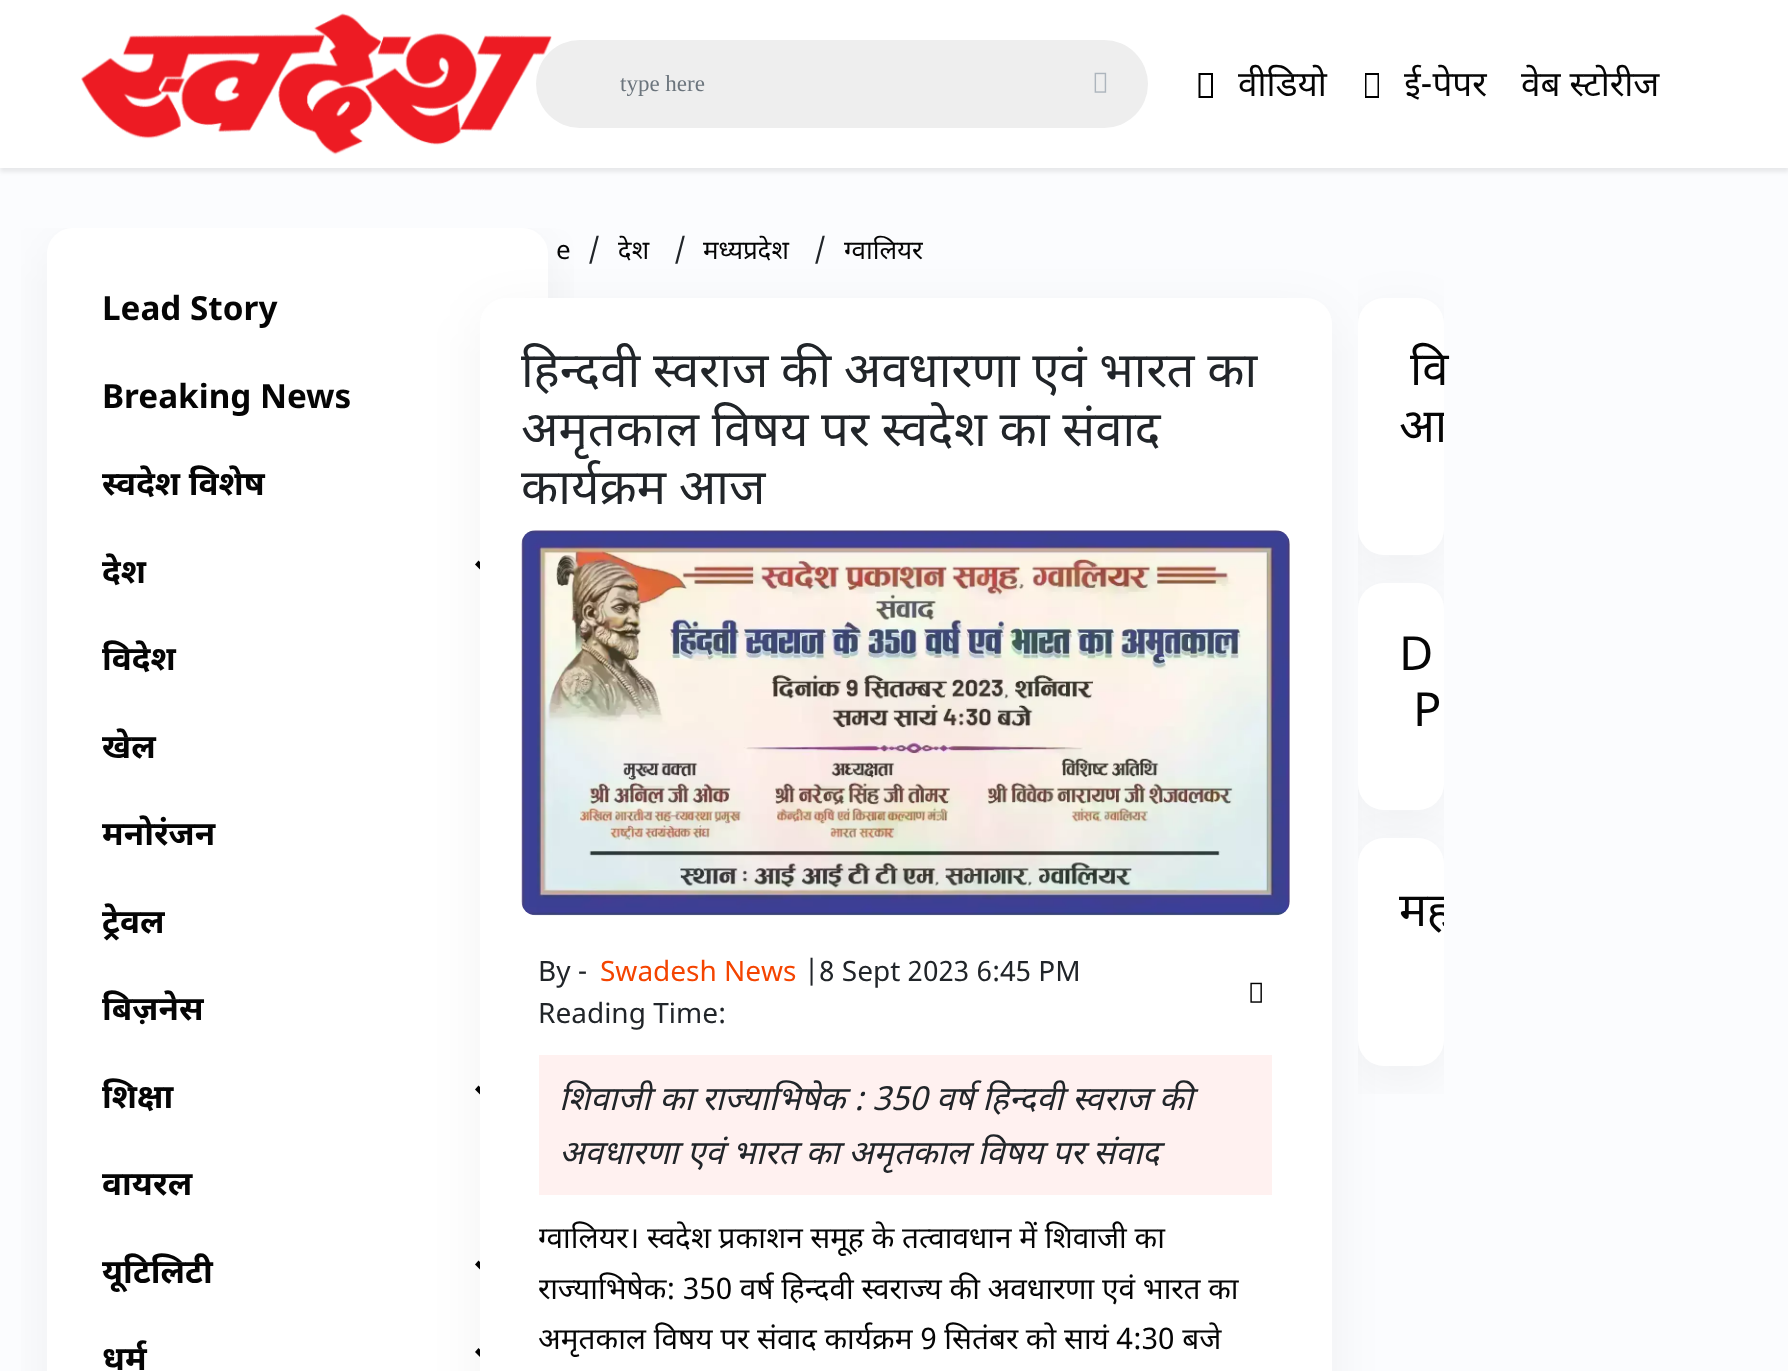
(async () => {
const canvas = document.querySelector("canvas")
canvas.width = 1788
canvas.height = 1371
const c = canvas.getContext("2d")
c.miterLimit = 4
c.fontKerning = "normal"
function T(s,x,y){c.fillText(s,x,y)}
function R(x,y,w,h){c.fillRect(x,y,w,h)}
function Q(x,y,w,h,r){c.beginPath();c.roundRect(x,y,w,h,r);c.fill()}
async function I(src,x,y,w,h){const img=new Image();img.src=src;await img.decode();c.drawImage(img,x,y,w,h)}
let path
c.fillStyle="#fbfcfe"
R(0,0,1788,1371)
c.fillStyle="#00000014"
c.filter="blur(2px)"
c.beginPath()
c.rect(0,4,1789,168)
c.fill()
c.filter="none"
c.save()
path = new Path2D("M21 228h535c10 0 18 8 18 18v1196c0 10-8 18-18 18h-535z")
c.clip(path)
c.fillStyle="#0000000d"
c.filter="blur(26px)"
c.beginPath()
c.roundRect(47,242,501,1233,26)
c.fill()
c.filter="none"
c.restore()
c.fillStyle="#fff"
R(0,0,1788,168)
await I("1.png",81,13,471,142)
c.fillStyle="#eee"
Q(536,40,612,88,44)
c.font="23px Liberation Serif"
c.fillStyle="#6c757d"
T("type here",620,91)
await I("2.png",1094,72,13,21)
c.fillStyle="#000"
path = new Path2D("M1198.5 98v-25h14.5v25zm2-2h10.5v-21h-10.5z")
c.fill(path)
c.font="35px Noto Sans"
c.fillStyle="#050505"
T("वीडियो",1238,96)
c.fillStyle="#000"
path = new Path2D("M1365 98v-25h14v25zm1.5-2h11v-21h-11z")
c.fill(path)
c.fillStyle="#050505"
T("ई-पेपर",1404,96)
T("वेब स्टोरीज",1521,96)
c.fillStyle="#fff"
path = new Path2D("M73 228h449c14.5 0 26 11.5 26 26v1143h-501v-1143c0-14.5 11.5-26 26-26z")
c.fill(path)
c.font="bold 33.25px Noto Sans"
c.fillStyle="#050505"
T("Lead Story",102,320)
T("Breaking News",102,408)
T("स्वदेश विशेष",102,495)
T("देश",102,583)
c.fillStyle="#000"
path = new Path2D("M478.5 560.5l11 11.5l-3.5 3.5l-11-11z")
c.fill(path)
c.fillStyle="#050505"
T("विदेश",102,670)
T("खेल",102,758)
T("मनोरंजन",102,845)
T("ट्रेवल",102,933)
T("बिज़नेस",102,1020)
T("शिक्षा",102,1108)
c.fillStyle="#000"
path = new Path2D("M478.5 1085.5l11 11.5l-3.5 3.5l-11-11z")
c.fill(path)
c.fillStyle="#050505"
T("वायरल",102,1195)
T("यूटिलिटी",102,1283)
c.fillStyle="#000"
path = new Path2D("M478.5 1260.5l11 11.5l-3.5 3.5l-11-11z")
c.fill(path)
c.fillStyle="#050505"
T("धर्म",102,1370)
c.fillStyle="#000"
path = new Path2D("M478.5 1348l11 11.5l-3.5 3.5l-11-11z")
c.fill(path)
c.font="26px Noto Sans"
c.fillStyle="#050505"
T("e",556,259)
c.font="28px Noto Sans"
c.fillStyle="#212529"
T("/",588,259)
c.font="26px Noto Sans"
c.fillStyle="#050505"
T("देश",618,259)
c.font="28px Noto Sans"
c.fillStyle="#212529"
T("/",674,259)
c.font="26px Noto Sans"
c.fillStyle="#050505"
T("मध्यप्रदेश",703,259)
c.font="28px Noto Sans"
c.fillStyle="#212529"
T("/",814,259)
c.font="26px Noto Sans"
c.fillStyle="#050505"
T("ग्वालियर",844,259)
c.fillStyle="#0000000d"
c.filter="blur(26px)"
c.beginPath()
c.roundRect(480,312,852,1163,26)
c.fill()
c.filter="none"
c.fillStyle="#fff"
Q(480,298,852,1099,26)
c.font="49px Noto Sans"
c.fillStyle="#212529"
T("हिन्दवी स्वराज की अवधारणा एवं भारत का",521,387)
T("अमृतकाल विषय पर स्वदेश का संवाद",521,446)
T("कार्यक्रम आज",521,504)
await I("3.png",521,530,769,386)
c.font="28px Noto Sans"
T("By -",538,981)
c.fillStyle="#f44400"
T("Swadesh News",600,981)
c.fillStyle="#212529"
T("|8 Sept 2023 6:45 PM",804,981)
T("Reading Time:",538,1023)
await I("4.png",1250,982,12,21)
c.fillStyle="#fff1f0"
R(539,1055,733,140)
c.font="italic 33.25px Noto Sans"
c.fillStyle="#212529"
T("शिवाजी का राज्याभिषेक : 350 वर्ष हिन्दवी स्वराज की",559,1110)
T("अवधारणा एवं भारत का अमृतकाल विषय पर संवाद",559,1164)
c.save()
c.beginPath()
c.rect(539,1213,733,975)
c.clip()
c.font="29.75px Noto Sans"
c.fillStyle="#050505"
T("ग्वालियर। स्वदेश प्रकाशन समूह के तत्वावधान में शिवाजी का",538,1248)
T("राज्याभिषेक: 350 वर्ष हिन्दवी स्वराज्य की अवधारणा एवं भारत का",538,1299)
c.restore()
c.font="29.75px Noto Sans"
c.fillStyle="#050505"
T("अमृतकाल विषय पर संवाद कार्यक्रम 9 सितंबर को सायं 4:30 बजे",538,1349)
c.save()
c.beginPath()
c.rect(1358,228,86,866)
c.clip()
c.fillStyle="#0000000d"
c.filter="blur(26px)"
c.beginPath()
c.roundRect(1358,312,86,257,26)
c.fill()
c.filter="none"
c.restore()
c.fillStyle="#fff"
Q(1358,298,86,257,26)
c.font="47px Noto Sans"
c.fillStyle="#050505"
T("वि",1410,385)
c.save()
c.beginPath()
c.rect(1358,228,86,866)
c.clip()
T("आ",1399,442)
c.restore()
c.save()
c.beginPath()
c.rect(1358,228,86,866)
c.clip()
c.fillStyle="#0000000d"
c.filter="blur(26px)"
c.beginPath()
c.roundRect(1358,597,86,227,26)
c.fill()
c.filter="none"
c.restore()
c.fillStyle="#fff"
Q(1358,583,86,227,26)
c.fillStyle="#050505"
T("D",1399,670)
T("P",1413,726)
c.save()
c.beginPath()
c.rect(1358,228,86,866)
c.clip()
c.fillStyle="#0000000d"
c.filter="blur(26px)"
c.beginPath()
c.roundRect(1358,852,86,228,26)
c.fill()
c.filter="none"
c.restore()
c.fillStyle="#fff"
Q(1358,838,86,228,26)
c.save()
c.beginPath()
c.rect(1358,228,86,866)
c.clip()
c.fillStyle="#050505"
T("मह",1399,926)
c.restore()
})()
